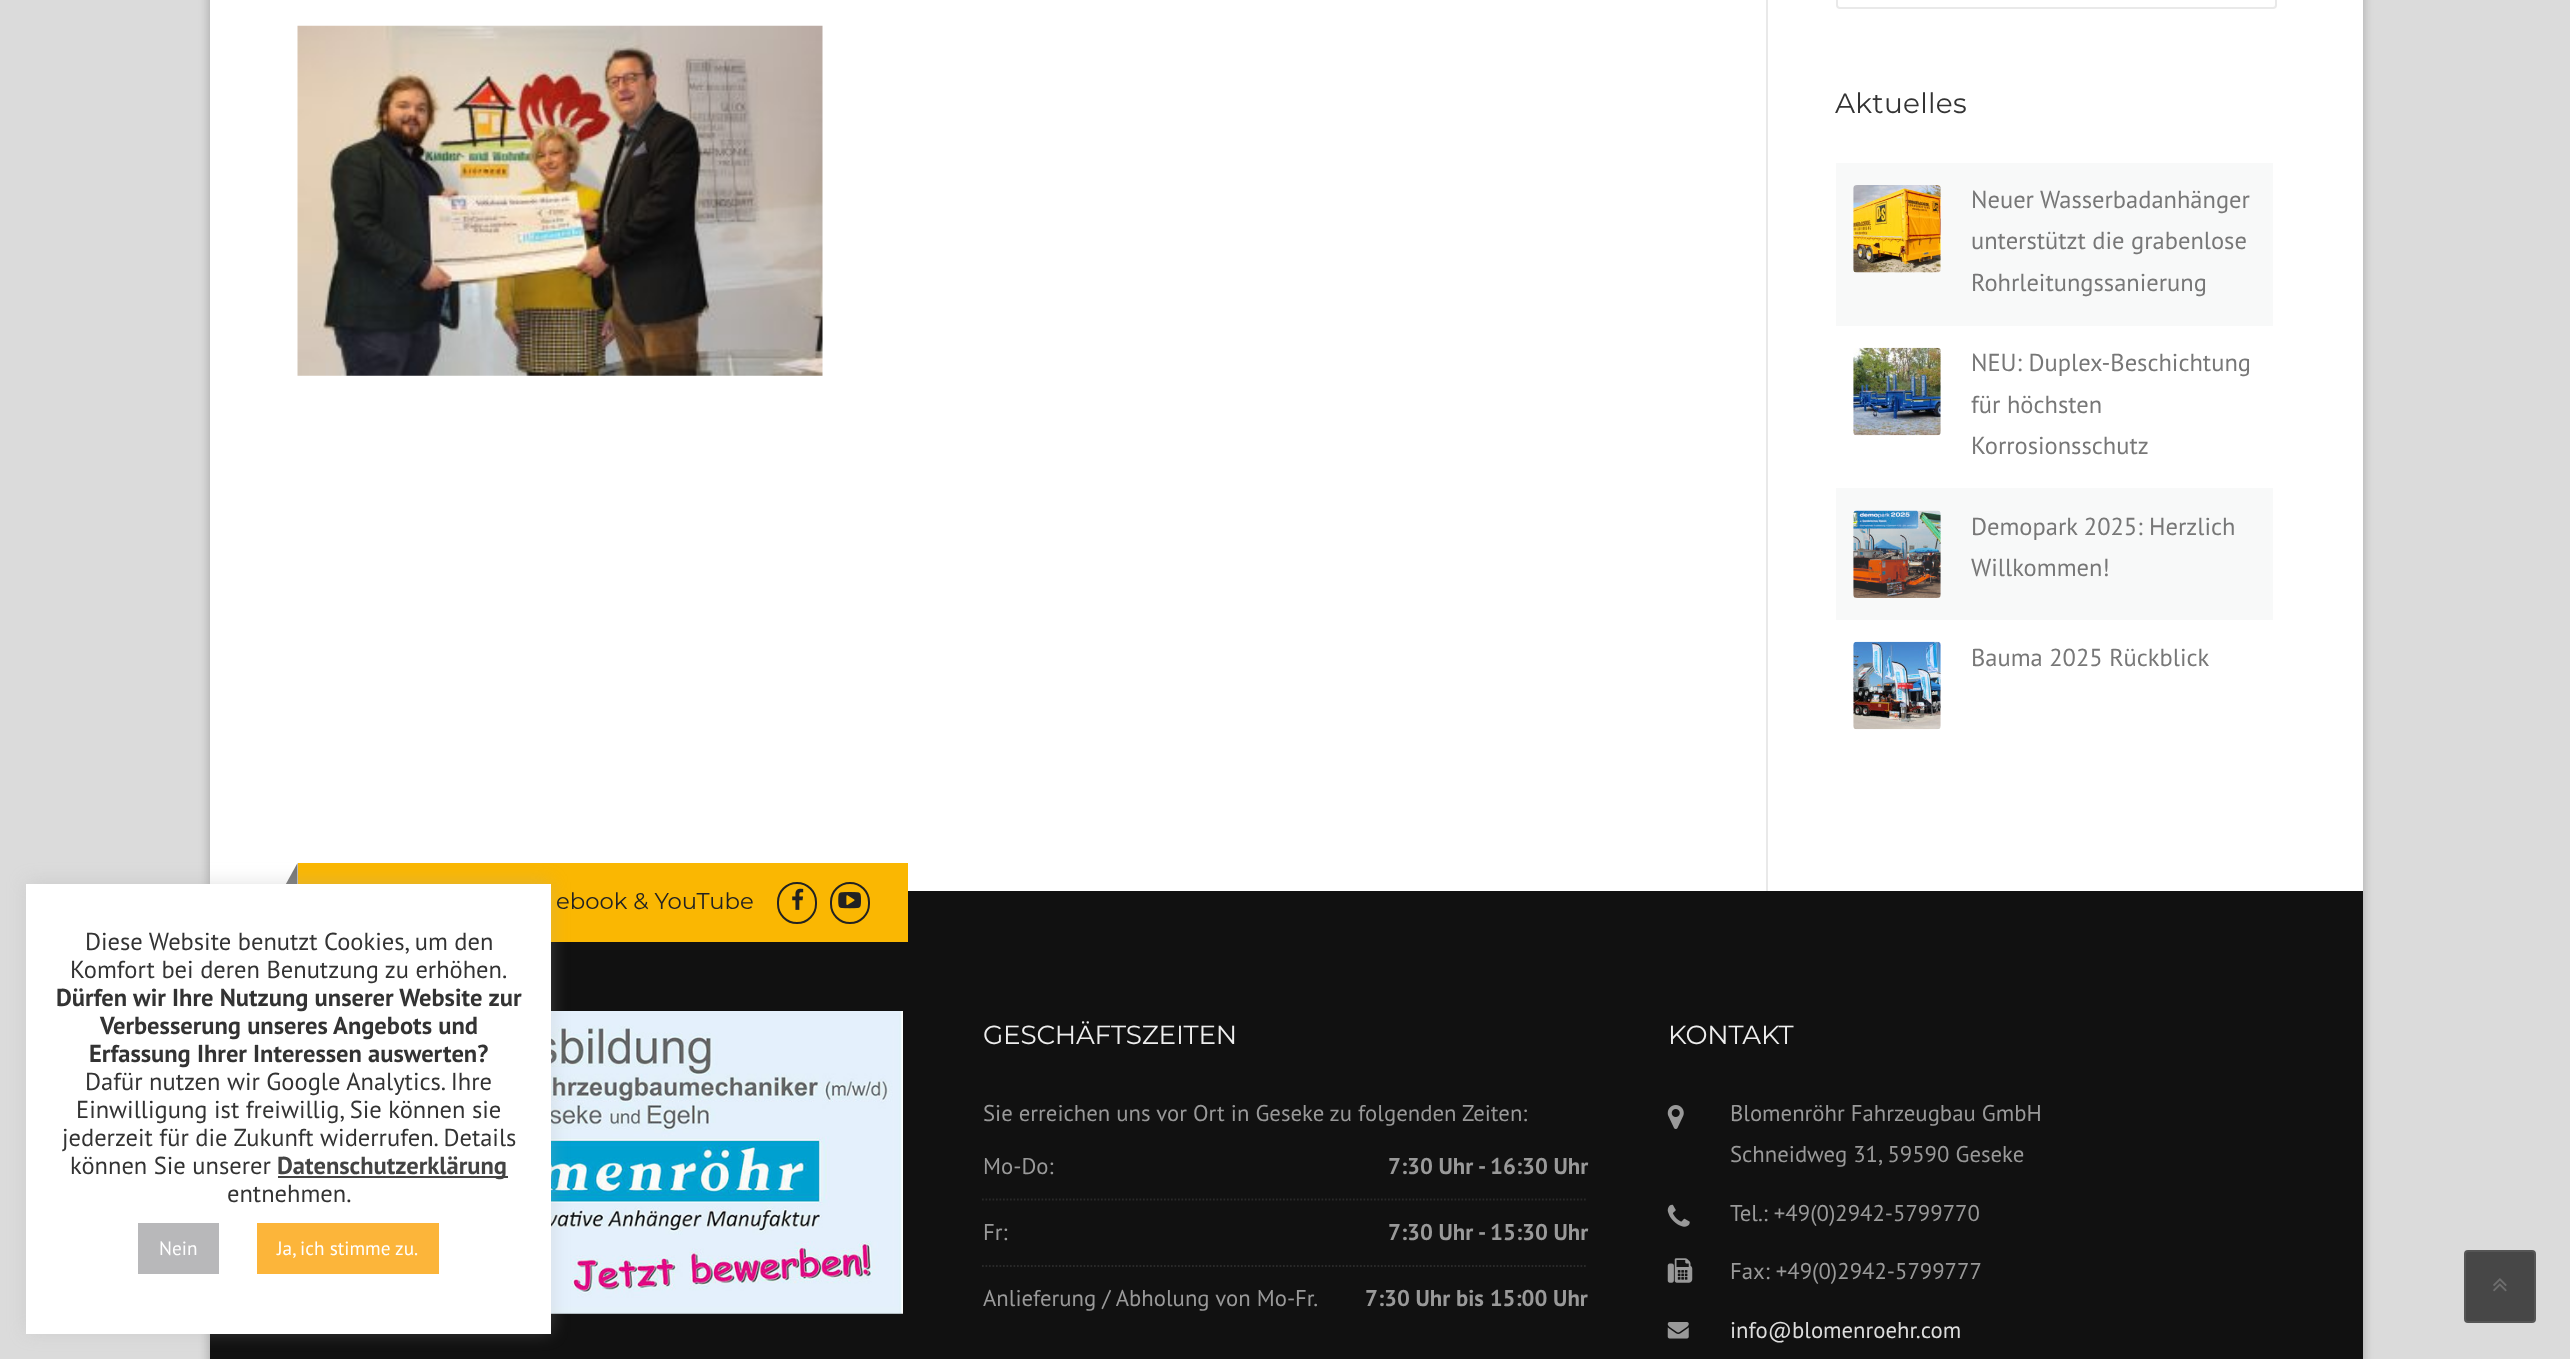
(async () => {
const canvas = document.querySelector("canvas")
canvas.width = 2570
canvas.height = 1359
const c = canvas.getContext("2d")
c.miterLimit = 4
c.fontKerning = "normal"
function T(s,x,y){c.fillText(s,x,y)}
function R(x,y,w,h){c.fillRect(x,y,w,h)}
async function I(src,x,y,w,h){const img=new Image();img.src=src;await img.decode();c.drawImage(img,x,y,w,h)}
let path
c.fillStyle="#dbdbdb"
R(0,0,2570,1359)
c.fillStyle="#00000033"
c.filter="blur(5px)"
c.beginPath()
c.rect(208,-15,2156,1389)
c.fill()
c.filter="none"
c.fillStyle="#fff"
R(210,0,2153,891)
c.fillStyle="#111"
R(210,891,2153,468)
c.fillStyle="#fab702"
R(298,863,610,79)
c.fillStyle="#777"
path = new Path2D("M297.5 863v28h-15.5z")
c.fill(path)
await I("8.png",551,1011,352,303)
c.fillStyle="#acabab4d"
c.filter="blur(9px)"
c.beginPath()
c.rect(26,882,525,450)
c.fill()
c.filter="none"
c.fillStyle="#fff"
R(26,884,525,450)
c.font="24.5px PT Sans"
c.fillStyle="#333"
T("Diese Website benutzt Cookies, um den",85,950)
T("Komfort bei deren Benutzung zu erhöhen.",70,978)
c.font="bold 24.5px PT Sans"
T("Dürfen wir Ihre Nutzung unserer Website zur",56,1006)
T("Verbesserung unseres Angebots und",100,1034)
T("Erfassung Ihrer Interessen auswerten?",89,1062)
c.font="24.5px PT Sans"
T("Dafür nutzen wir Google Analytics. Ihre",85,1090)
T("Einwilligung ist freiwillig, Sie können sie",76,1118)
T("jederzeit für die Zukunft widerrufen. Details",62,1146)
T("können Sie unserer",70,1174)
c.fillStyle="#444"
R(278,1176,230,2)
c.font="bold 24.5px PT Sans"
T("Datenschutzerklärung",277,1174)
c.font="24.5px PT Sans"
c.fillStyle="#333"
T("entnehmen.",227,1202)
c.fillStyle="#b8b8ba"
R(138,1223,81,51)
c.font="19.25px PT Sans"
c.fillStyle="#fff"
T("Nein",159,1255)
c.fillStyle="#fcb53a"
R(257,1223,182,51)
c.fillStyle="#fff"
T("Ja, ich stimme zu.",277,1255)
await I("1.png",297,25,526,351)
c.fillStyle="#e9e9e9"
R(1766,0,2,891)
c.beginPath()
c.roundRect(1837,-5,439,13,3)
c.strokeStyle="#e9e9e9"
c.lineWidth=2
c.stroke()
c.letterSpacing="0.25px"
c.font="28px Montserrat"
c.fillStyle="#333"
T("Aktuelles",1835,113)
c.fillStyle="#f8f9f9"
R(1836,163,437,163)
await I("2.png",1853,185,88,88)
c.letterSpacing="0px"
c.font="24.5px PT Sans"
c.fillStyle="#777"
T("Neuer Wasserbadanhänger",1971,208)
T("unterstützt die grabenlose",1971,249)
T("Rohrleitungssanierung",1971,291)
await I("3.png",1853,347,88,89)
T("NEU: Duplex-Beschichtung",1971,371)
T("für höchsten",1971,413)
T("Korrosionsschutz",1971,454)
c.fillStyle="#f8f9f9"
R(1836,488,437,132)
await I("4.png",1853,510,88,88)
c.fillStyle="#777"
T("Demopark 2025: Herzlich",1971,535)
T("Willkommen!",1971,576)
await I("5.png",1853,641,88,89)
T("Bauma 2025 Rückblick",1971,666)
c.font="22.75px Montserrat"
c.fillStyle="#222"
T("ebook & YouTube",556,909)
c.beginPath()
c.roundRect(778,883,38,40,19)
c.strokeStyle="#222"
c.stroke()
await I("6.png",792,888,12,22)
c.beginPath()
c.roundRect(831,883,38,40,19)
c.stroke()
await I("7.png",838,892,23,17)
c.letterSpacing="-0.2px"
c.font="26.25px Montserrat"
c.fillStyle="#eee"
T("GESCHÄFTSZEITEN",983,1044)
c.letterSpacing="0px"
c.font="22.75px PT Sans"
c.fillStyle="#999"
T("Sie erreichen uns vor Ort in Geseke zu folgenden Zeiten:",983,1121)
T("Mo-Do:",983,1174)
c.font="bold 22.75px PT Sans"
T("7:30 Uhr - 16:30 Uhr",1388,1174)
path = new Path2D("M982 1199.5h605")
c.strokeStyle="#292929"
c.lineWidth=1.8
c.setLineDash([1.75,1.75])
c.stroke(path)
c.font="22.75px PT Sans"
T("Fr:",983,1240)
c.font="bold 22.75px PT Sans"
T("7:30 Uhr - 15:30 Uhr",1388,1240)
path = new Path2D("M982 1266h605")
c.stroke(path)
c.font="22.75px PT Sans"
T("Anlieferung / Abholung von Mo-Fr.",983,1306)
c.font="bold 22.75px PT Sans"
T("7:30 Uhr bis 15:00 Uhr",1365,1306)
c.letterSpacing="-0.2px"
c.font="26.25px Montserrat"
c.fillStyle="#eee"
T("KONTAKT",1668,1044)
await I("9.png",1667,1105,17,24)
c.letterSpacing="0px"
c.font="22.75px PT Sans"
c.fillStyle="#999"
T("Blomenröhr Fahrzeugbau GmbH",1730,1121)
T("Schneidweg 31, 59590 Geseke",1730,1162)
await I("10.png",1667,1204,23,23)
T("Tel.: +49(0)2942-5799770",1730,1221)
await I("11.png",1667,1258,26,25)
T("Fax: +49(0)2942-5799777",1730,1279)
await I("12.png",1667,1322,22,17)
c.fillStyle="#ddd"
T("info@blomenroehr.com",1730,1338)
c.fillStyle="#474747"
c.beginPath()
c.roundRect(2465,1251,70,71,3)
c.fill()
c.strokeStyle="#555"
c.lineWidth=2
c.setLineDash([])
c.stroke()
await I("13.png",2493,1278,14,14)
})()
